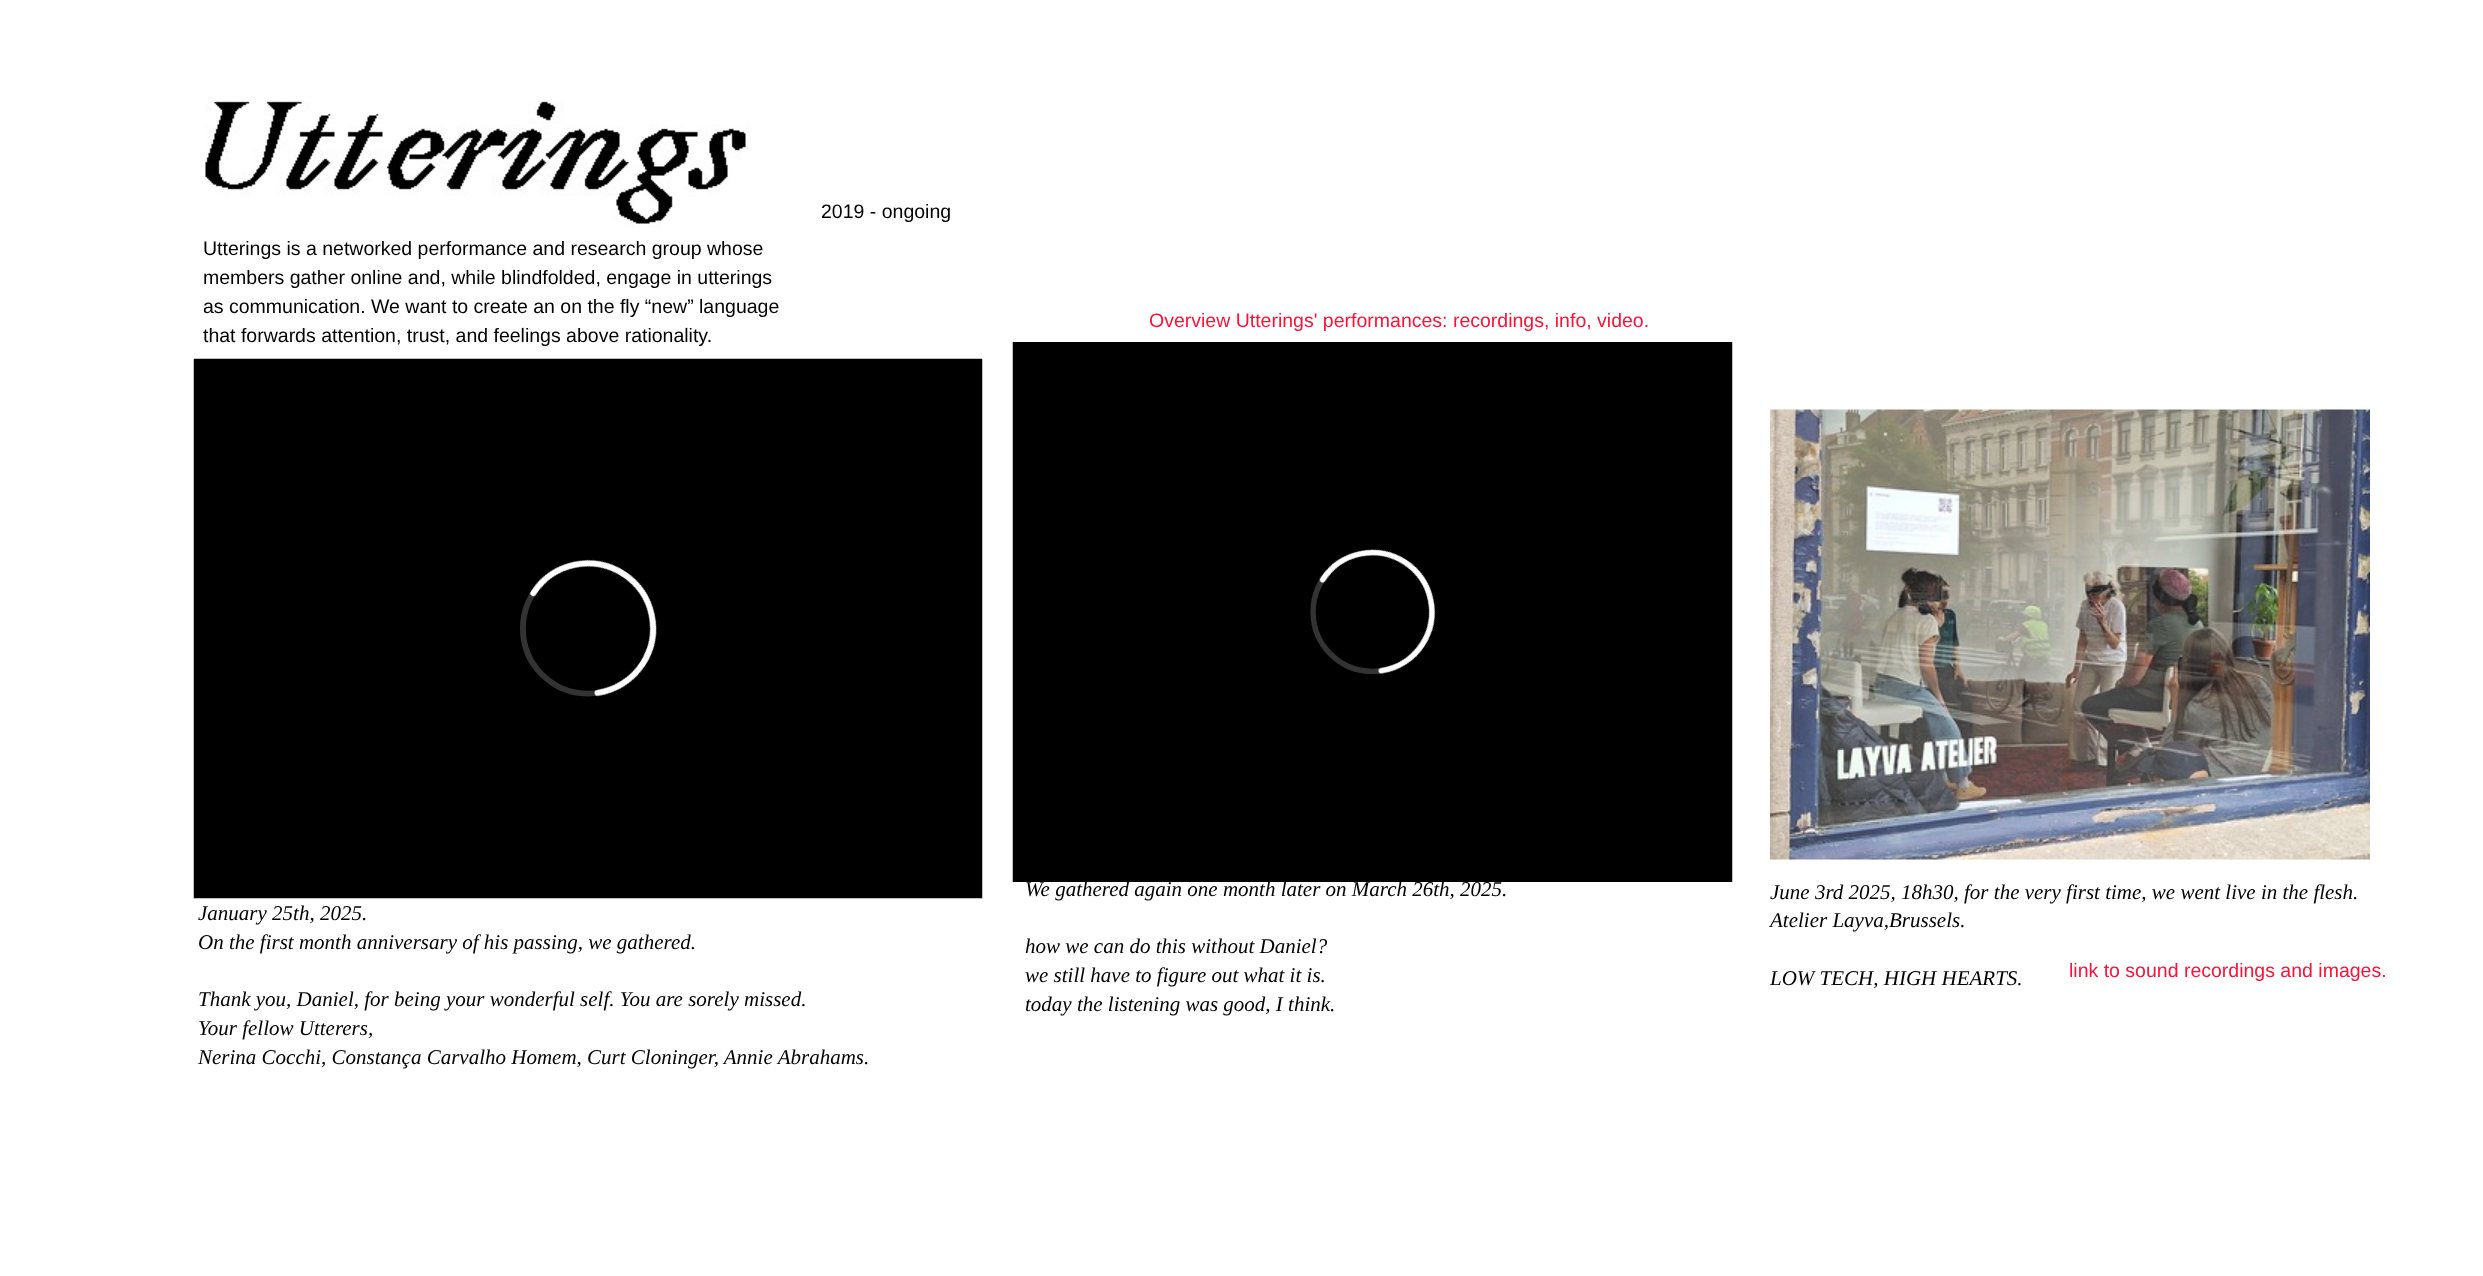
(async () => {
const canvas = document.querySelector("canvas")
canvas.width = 2483
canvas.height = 1276
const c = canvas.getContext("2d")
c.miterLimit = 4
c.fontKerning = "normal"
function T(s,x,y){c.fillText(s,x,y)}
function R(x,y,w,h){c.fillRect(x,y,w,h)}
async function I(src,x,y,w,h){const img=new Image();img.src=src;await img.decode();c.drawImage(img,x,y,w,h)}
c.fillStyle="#fff"
R(0,0,2483,1276)
await I("1.png",204,101,547,127)
c.font="19.5px Liberation Sans"
c.fillStyle="#000"
T("2019 - ongoing",821,218)
T("Utterings is a networked performance and research group whose",203,255)
T("members gather online and, while blindfolded, engage in utterings",203,284)
T("as communication. We want to create an on the fly “new” language",203,313)
T("that forwards attention, trust, and feelings above rationality.",203,342)
c.fillStyle="#fe1037"
T("Overview Utterings' performances: recordings, info, video.",1149,327)
await I("2.png",193,358,790,541)
c.font="italic 21px Liberation Serif"
c.fillStyle="#000"
T("We gathered again one month later on March 26th, 2025.",1025,896)
await I("3.png",1012,342,721,540)
await I("4.png",1770,409,600,451)
T("January 25th, 2025.",198,920)
T("On the first month anniversary of his passing, we gathered.",198,949)
T("Thank you, Daniel, for being your wonderful self. You are sorely missed.",198,1006)
T("Your fellow Utterers,",198,1035)
T("Nerina Cocchi, Constança Carvalho Homem, Curt Cloninger, Annie Abrahams.",198,1064)
T("how we can do this without Daniel?",1025,953)
T("we still have to figure out what it is.",1025,982)
T("today the listening was good, I think.",1025,1011)
T("June 3rd 2025, 18h30, for the very first time, we went live in the flesh.",1770,899)
T("Atelier Layva,Brussels.",1770,927)
T("LOW TECH, HIGH HEARTS.",1770,985)
c.font="19.5px Liberation Sans"
c.fillStyle="#fe1037"
T("link to sound recordings and images.",2069,977)
})()
